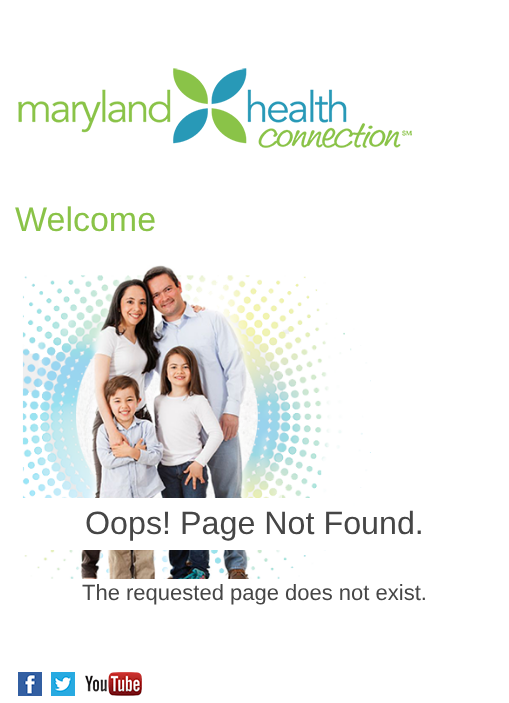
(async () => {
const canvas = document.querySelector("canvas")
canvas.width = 509
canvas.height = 703
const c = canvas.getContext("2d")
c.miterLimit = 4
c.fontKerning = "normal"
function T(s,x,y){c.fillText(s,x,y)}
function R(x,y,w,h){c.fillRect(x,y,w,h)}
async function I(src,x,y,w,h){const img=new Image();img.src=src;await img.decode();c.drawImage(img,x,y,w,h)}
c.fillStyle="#fff"
R(0,0,509,703)
await I("1.png",18,68,394,80)
c.font="34px Liberation Sans"
c.fillStyle="#8ac348"
T("Welcome",15,231)
await I("2.png",22,265,349,314)
c.fillStyle="#fff"
R(22,498,315,52)
c.font="32.25px Liberation Sans"
c.fillStyle="#464646"
T("Oops! Page Not Found.",85,534)
c.font="22px Liberation Sans"
T("The requested page does not exist.",82,600)
await I("3.png",18,672,24,24)
await I("4.png",51,672,24,24)
await I("5.png",85,672,57,24)
})()
